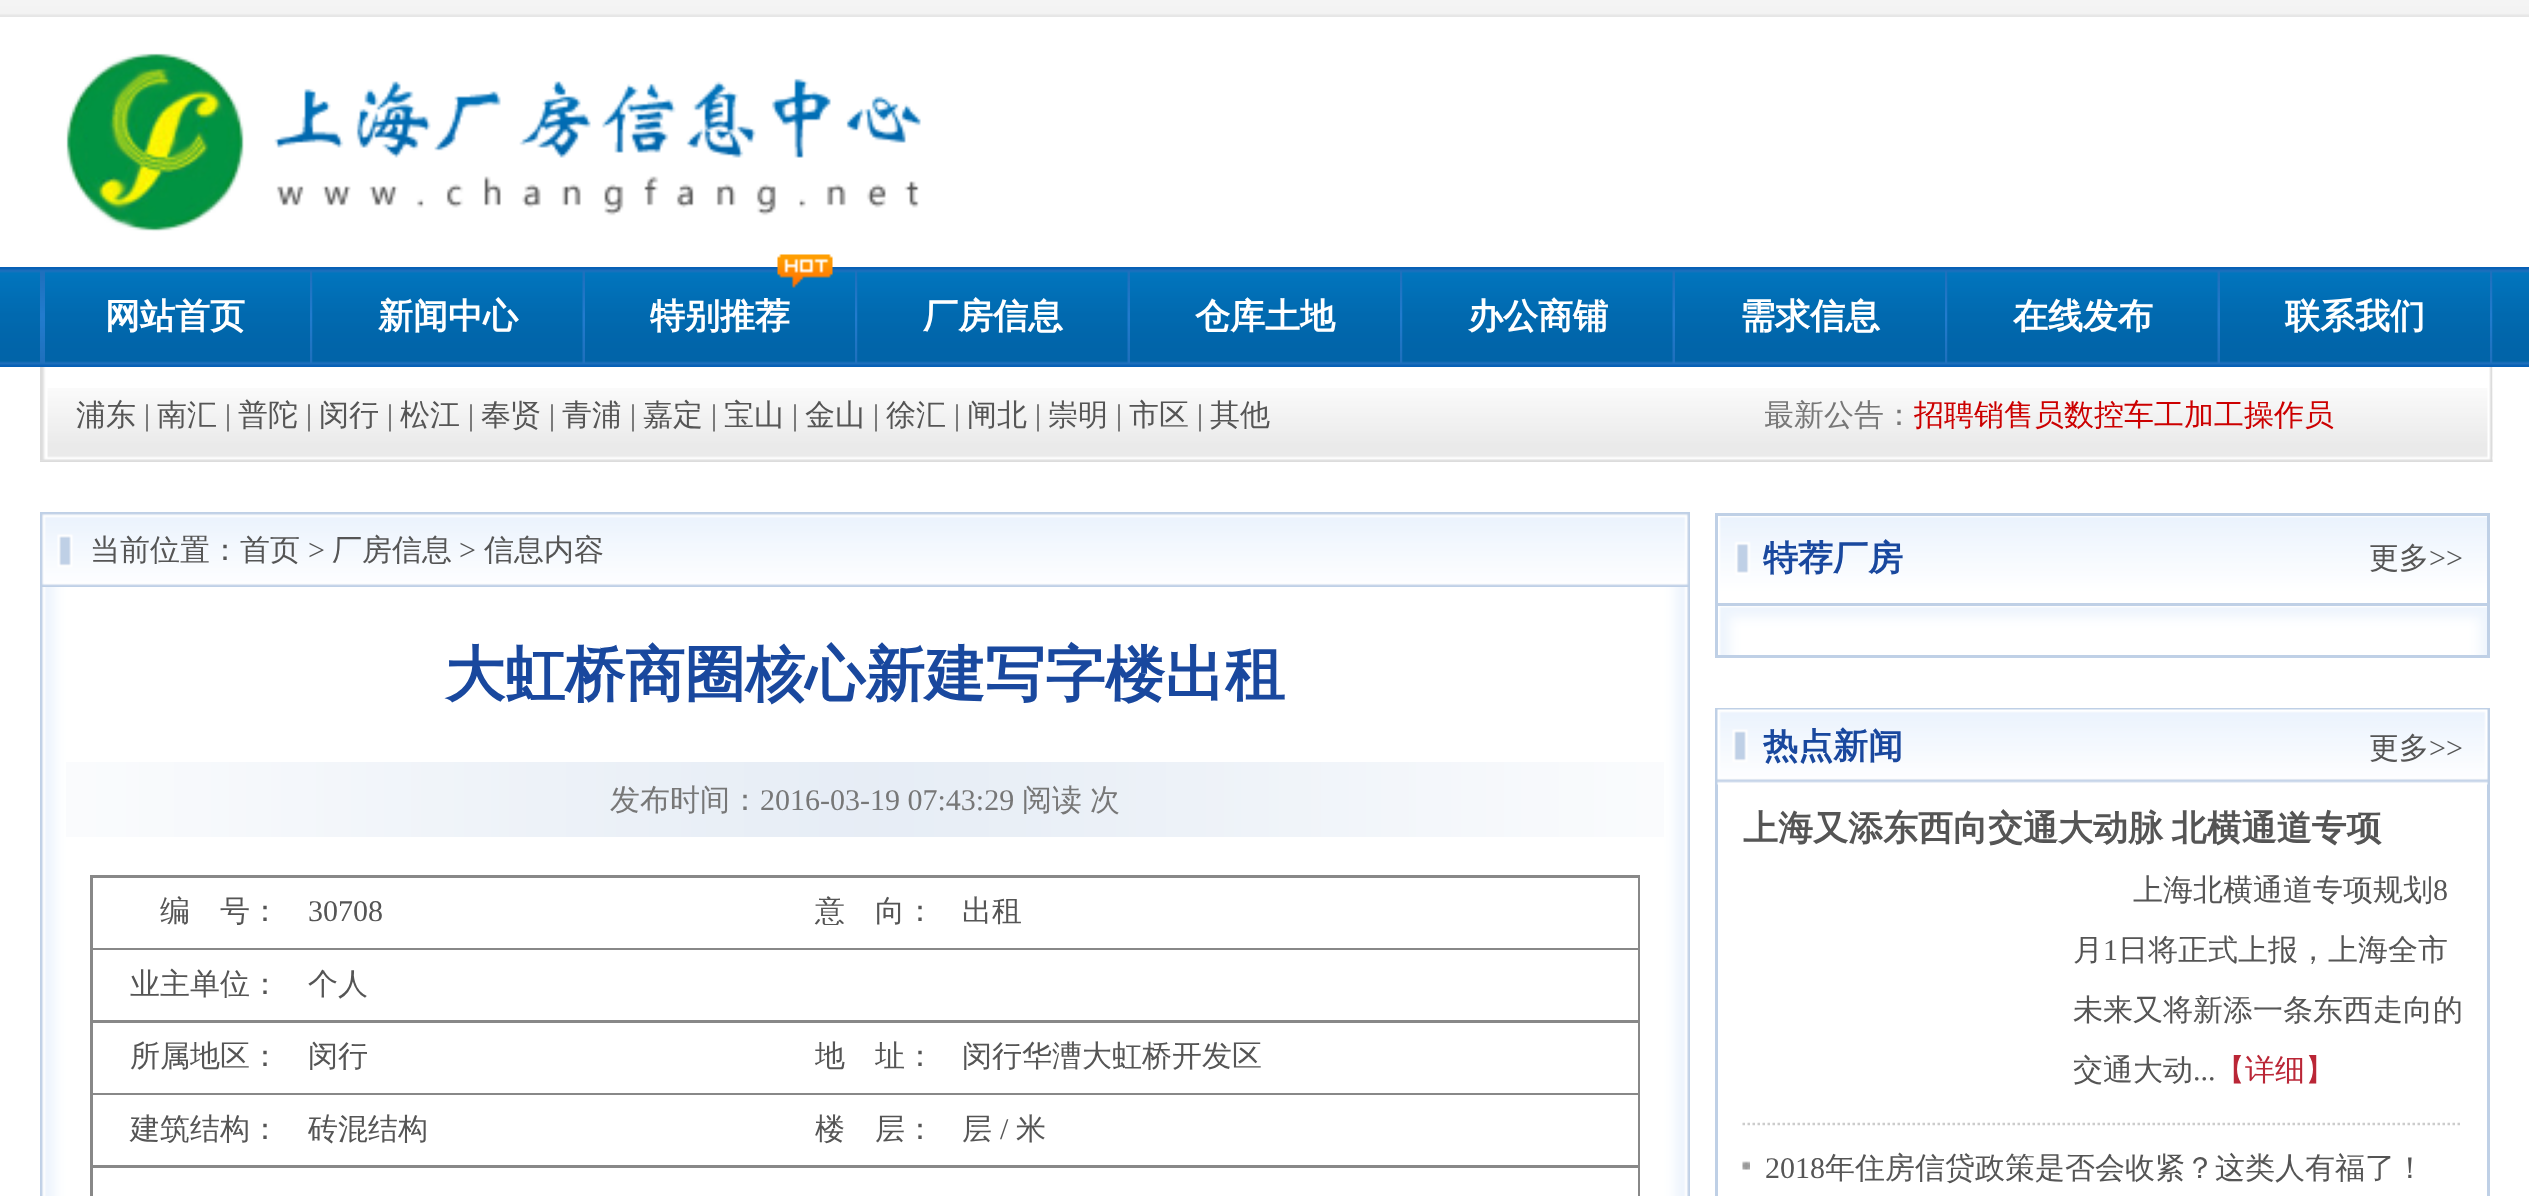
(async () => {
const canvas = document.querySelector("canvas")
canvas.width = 2529
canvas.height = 1196
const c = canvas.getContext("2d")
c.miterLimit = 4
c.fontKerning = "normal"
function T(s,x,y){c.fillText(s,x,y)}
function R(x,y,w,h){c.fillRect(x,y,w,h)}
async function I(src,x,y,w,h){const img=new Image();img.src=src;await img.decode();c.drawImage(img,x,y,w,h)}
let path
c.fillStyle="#fff"
R(0,0,2529,1196)
await I("1.png",0,0,2529,17)
await I("2.png",66,53,855,179)
await I("3.png",0,267,2529,100)
await I("4.png",40,271,5,92)
await I("5.png",777,254,56,34)
await I("6.png",310,271,3,92)
c.font="bold 35px WenQuanYi Zen Hei"
T("网站首页",105,328)
await I("7.png",582,271,3,92)
T("新闻中心",378,328)
await I("6.png",855,271,3,92)
T("特别推荐",650,328)
await I("7.png",1127,271,3,92)
T("厂房信息",923,328)
await I("6.png",1400,271,3,92)
T("仓库土地",1195,328)
await I("7.png",1672,271,3,92)
T("办公商铺",1468,328)
await I("6.png",1945,271,3,92)
T("需求信息",1740,328)
await I("7.png",2217,271,3,92)
T("在线发布",2013,328)
await I("6.png",2490,271,3,92)
T("联系我们",2285,328)
await I("8.png",40,388,2453,74)
await I("9.png",40,367,8,93)
c.font="500 30px WenQuanYi Zen Hei"
c.fillStyle="#555"
T("浦东",76,425)
c.font="30px Liberation Serif"
T("|",144,425)
c.font="500 30px WenQuanYi Zen Hei"
T("南汇",157,425)
c.font="30px Liberation Serif"
T("|",225,425)
c.font="500 30px WenQuanYi Zen Hei"
T("普陀",238,425)
c.font="30px Liberation Serif"
T("|",306,425)
c.font="500 30px WenQuanYi Zen Hei"
T("闵行",319,425)
c.font="30px Liberation Serif"
T("|",387,425)
c.font="500 30px WenQuanYi Zen Hei"
T("松江",400,425)
c.font="30px Liberation Serif"
T("|",468,425)
c.font="500 30px WenQuanYi Zen Hei"
T("奉贤",481,425)
c.font="30px Liberation Serif"
T("|",549,425)
c.font="500 30px WenQuanYi Zen Hei"
T("青浦",562,425)
c.font="30px Liberation Serif"
T("|",630,425)
c.font="500 30px WenQuanYi Zen Hei"
T("嘉定",643,425)
c.font="30px Liberation Serif"
T("|",711,425)
c.font="500 30px WenQuanYi Zen Hei"
T("宝山",724,425)
c.font="30px Liberation Serif"
T("|",792,425)
c.font="500 30px WenQuanYi Zen Hei"
T("金山",805,425)
c.font="30px Liberation Serif"
T("|",873,425)
c.font="500 30px WenQuanYi Zen Hei"
T("徐汇",886,425)
c.font="30px Liberation Serif"
T("|",954,425)
c.font="500 30px WenQuanYi Zen Hei"
T("闸北",967,425)
c.font="30px Liberation Serif"
T("|",1035,425)
c.font="500 30px WenQuanYi Zen Hei"
T("崇明",1048,425)
c.font="30px Liberation Serif"
T("|",1116,425)
c.font="500 30px WenQuanYi Zen Hei"
T("市区",1129,425)
c.font="30px Liberation Serif"
T("|",1197,425)
c.font="500 30px WenQuanYi Zen Hei"
T("其他",1210,425)
await I("10.png",2487,367,6,95)
c.save()
c.beginPath()
c.rect(1765,393,703,47)
c.clip()
c.fillStyle="#777"
T("最新公告：",1764,425)
c.restore()
c.fillStyle="#c00"
T("招聘销售员数控车工加工操作员",1914,425)
await I("11.png",40,512,1650,75)
c.fillStyle="#555"
T("当前位置：首页",90,560)
c.font="30px Liberation Serif"
T(">",308,560)
c.font="500 30px WenQuanYi Zen Hei"
T("厂房信息",332,560)
c.font="30px Liberation Serif"
T(">",459,560)
c.font="500 30px WenQuanYi Zen Hei"
T("信息内容",484,560)
await I("12.png",40,587,1650,609)
c.font="bold 60px WenQuanYi Zen Hei"
c.fillStyle="#19489e"
T("大虹桥商圈核心新建写字楼出租",445,695)
await I("13.png",66,762,1598,75)
c.font="500 30px WenQuanYi Zen Hei"
c.fillStyle="#777"
T("发布时间：",610,810)
c.font="30px Liberation Serif"
T("2016-03-19 07:43:29",760,810)
c.font="500 30px WenQuanYi Zen Hei"
T("阅读",1022,810)
T("次",1090,810)
c.fillStyle="#888"
R(90,875,1550,321)
c.fillStyle="#fff"
R(93,878,1545,70)
c.fillStyle="#555"
T("编　号：",160,921)
c.font="30px Liberation Serif"
T("30708",308,921)
c.font="500 30px WenQuanYi Zen Hei"
T("意　向：",815,921)
T("出租",962,921)
c.fillStyle="#fff"
R(93,950,1545,70)
c.fillStyle="#555"
T("业主单位：",130,994)
T("个人",308,994)
c.fillStyle="#fff"
R(93,1023,1545,70)
c.fillStyle="#555"
T("所属地区：",130,1066)
T("闵行",308,1066)
T("地　址：",815,1066)
T("闵行华漕大虹桥开发区",962,1066)
c.fillStyle="#fff"
R(93,1095,1545,70)
c.fillStyle="#555"
T("建筑结构：",130,1139)
T("砖混结构",308,1139)
T("楼　层：",815,1139)
T("层",962,1139)
c.font="30px Liberation Serif"
T("/",1000,1139)
c.font="500 30px WenQuanYi Zen Hei"
T("米",1016,1139)
c.fillStyle="#fff"
R(93,1168,1545,28)
await I("14.png",1719,516,768,139)
c.strokeStyle="#bfd0e6"
c.lineWidth=3
c.strokeRect(1716.5,514.5,772,142)
c.fillStyle="#bfd0e6"
R(1718,603,770,3)
c.font="bold 35px WenQuanYi Zen Hei"
c.fillStyle="#19489e"
T("特荐厂房",1763,570)
c.font="500 30px WenQuanYi Zen Hei"
c.fillStyle="#555"
T("更多",2369,568)
c.font="30px Liberation Serif"
T(">>",2429,568)
c.strokeRect(1716.5,709.5,772,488)
await I("15.png",1717,709,771,76)
c.font="bold 35px WenQuanYi Zen Hei"
c.fillStyle="#19489e"
T("热点新闻",1763,758)
c.font="500 30px WenQuanYi Zen Hei"
c.fillStyle="#555"
T("更多",2369,758)
c.font="30px Liberation Serif"
T(">>",2429,758)
path = new Path2D("M1742.5 1124h720")
c.strokeStyle="#ccc"
c.lineWidth=2.5
c.setLineDash([2.5,2.5])
c.stroke(path)
c.wordSpacing="-2px"
c.font="bold 35px WenQuanYi Zen Hei"
T("上海又添东西向交通大动脉 北横通道专项",1743,840)
c.wordSpacing="0px"
c.font="500 30px WenQuanYi Zen Hei"
T("上海北横通道专项规划",2133,900)
c.font="30px Liberation Serif"
T("8",2433,900)
c.font="500 30px WenQuanYi Zen Hei"
T("月",2073,960)
c.font="30px Liberation Serif"
T("1",2103,960)
c.font="500 30px WenQuanYi Zen Hei"
T("日将正式上报，上海全市",2118,960)
T("未来又将新添一条东西走向的",2073,1020)
T("交通大动",2073,1080)
c.font="30px Liberation Serif"
T("...",2193,1080)
c.font="500 30px WenQuanYi Zen Hei"
c.fillStyle="#ba2636"
T("【详细】",2215,1080)
await I("16.png",1742,1161,8,9)
c.font="30px Liberation Serif"
c.fillStyle="#555"
T("2018",1765,1178)
c.font="500 30px WenQuanYi Zen Hei"
T("年住房信贷政策是否会收紧？这类人有福了！",1825,1178)
})()
